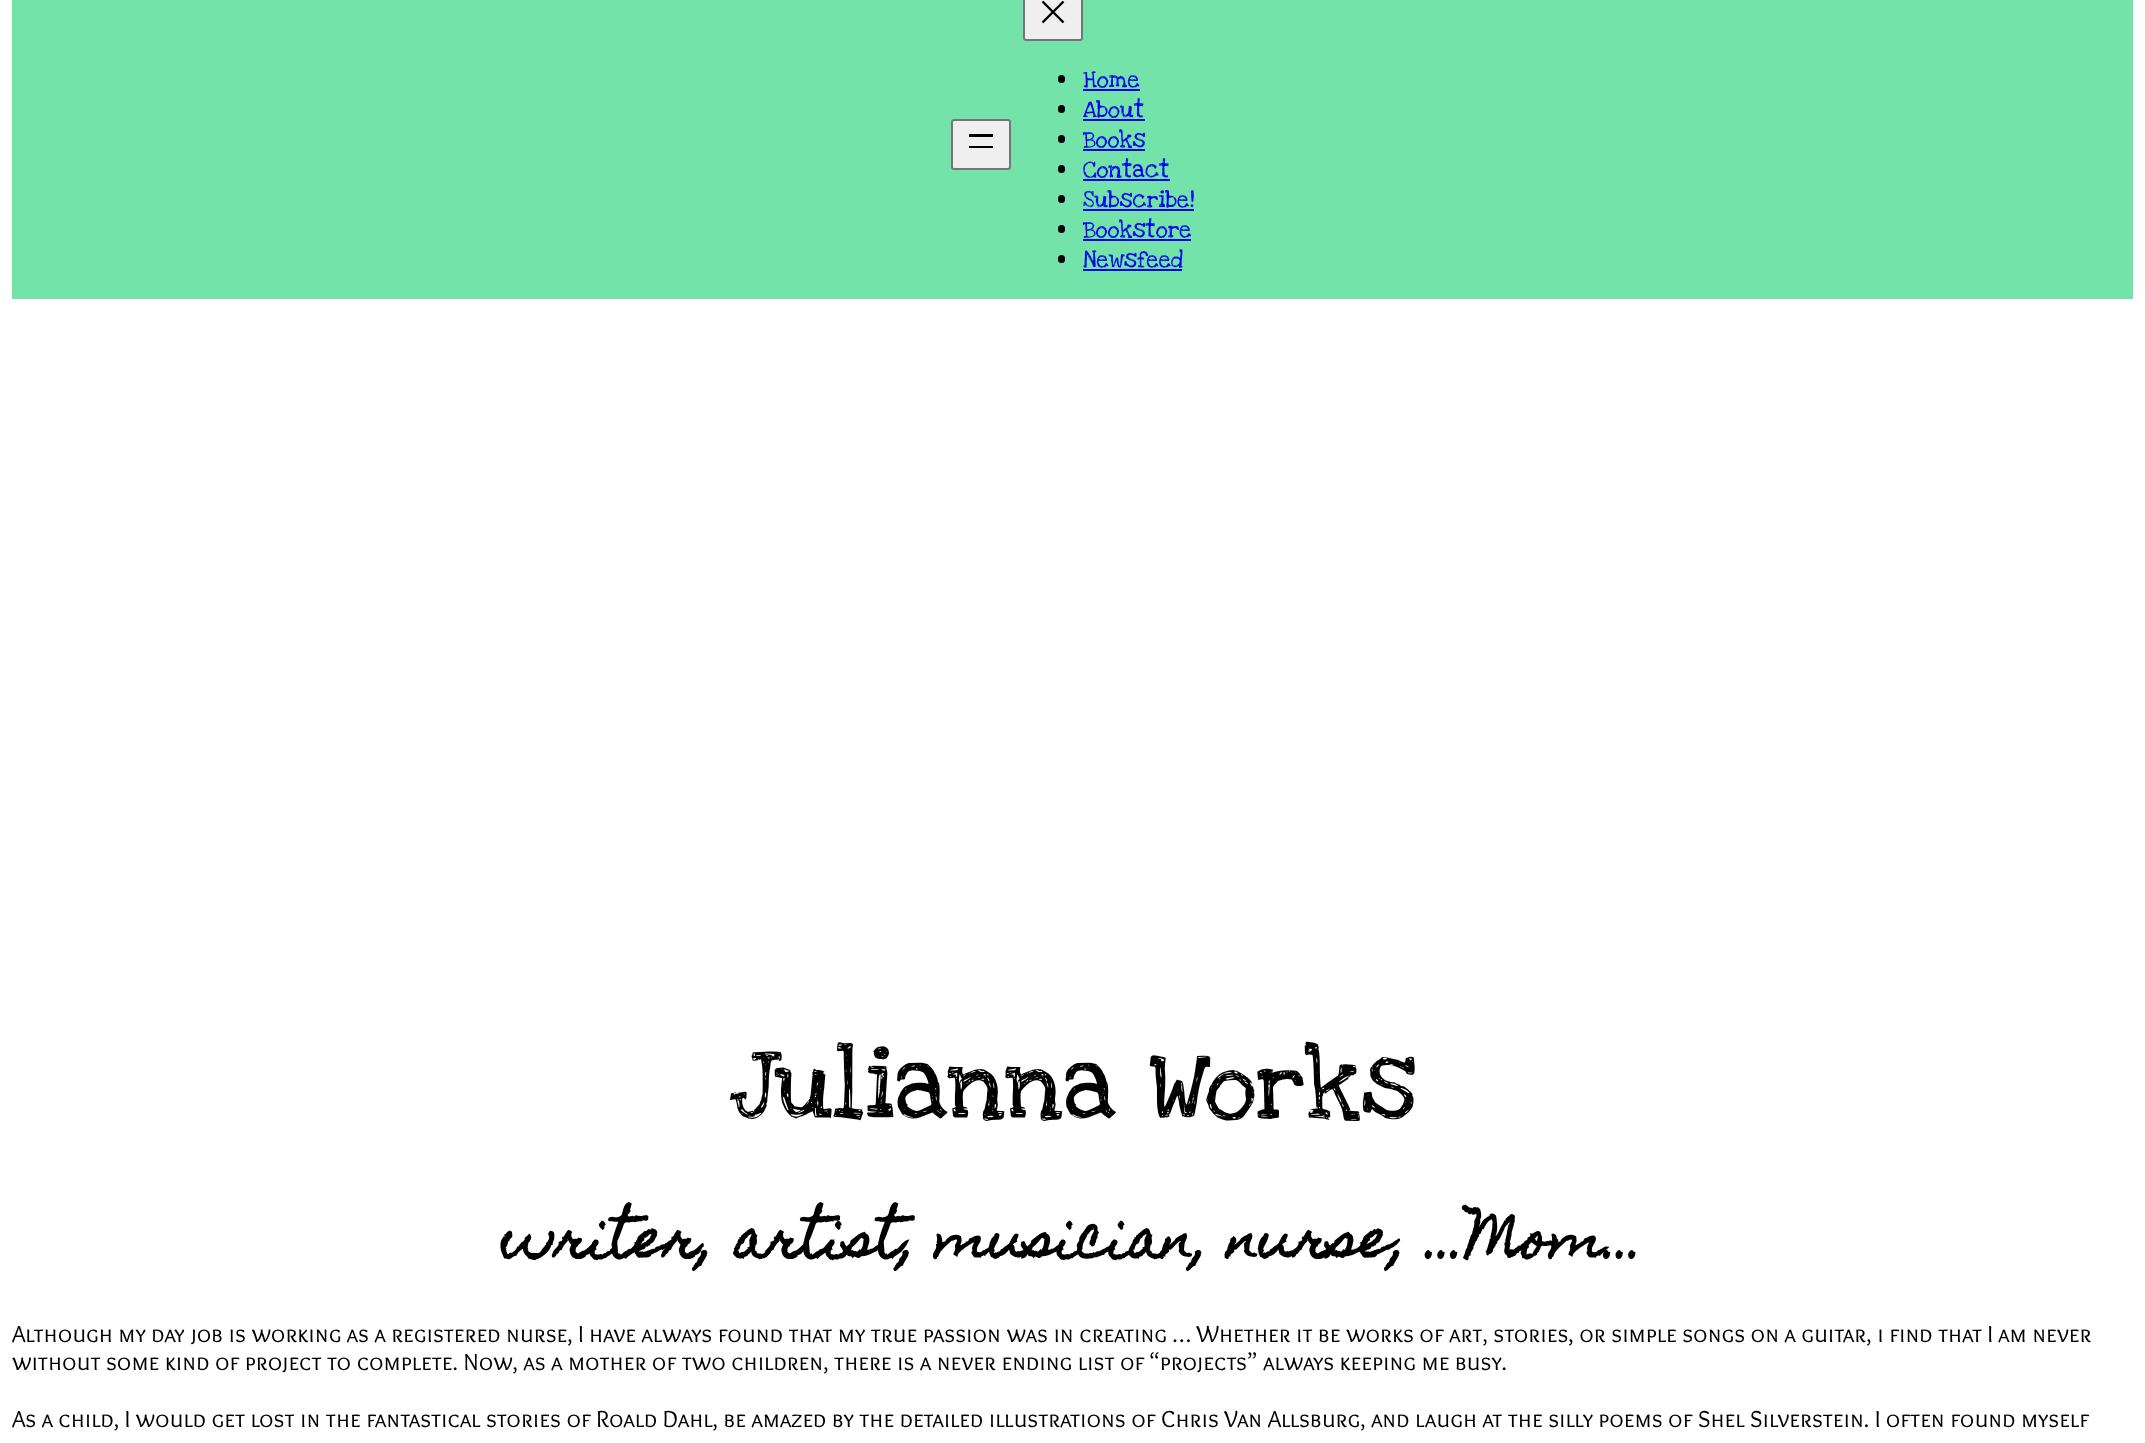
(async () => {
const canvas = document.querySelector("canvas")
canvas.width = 2145
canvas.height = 1443
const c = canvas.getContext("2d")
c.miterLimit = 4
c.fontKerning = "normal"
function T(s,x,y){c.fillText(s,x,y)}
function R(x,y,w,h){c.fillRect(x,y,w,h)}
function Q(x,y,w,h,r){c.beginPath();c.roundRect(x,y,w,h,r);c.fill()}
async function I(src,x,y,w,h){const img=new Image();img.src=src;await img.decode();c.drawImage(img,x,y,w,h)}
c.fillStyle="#fff"
R(0,0,2145,1443)
c.fillStyle="#74e3aa"
R(12,0,2121,299)
c.fillStyle="#efefef"
c.beginPath()
c.roundRect(952,120,58,49,2)
c.fill()
c.strokeStyle="#767676"
c.lineWidth=2
c.stroke()
c.fillStyle="#000"
R(969,134,24,3)
R(969,146,24,2)
c.fillStyle="#efefef"
c.beginPath()
c.roundRect(1024,-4,58,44,2)
c.fill()
c.stroke()
await I("1.png",1041,0,24,24)
c.fillStyle="#000"
Q(1058,75,7,8,3.5)
c.font="24px Love Ya Like A Sister"
c.fillStyle="#00e"
T("Home",1083,87)
R(1083,89,57,2)
c.fillStyle="#000"
Q(1058,105,7,8,3.5)
c.fillStyle="#00e"
T("About",1083,117)
R(1083,119,62,2)
c.fillStyle="#000"
Q(1058,135,7,8,3.5)
c.fillStyle="#00e"
T("Books",1083,147)
R(1083,149,62,2)
c.fillStyle="#000"
Q(1058,165,7,8,3.5)
c.fillStyle="#00e"
T("Contact",1083,177)
R(1083,179,87,2)
c.fillStyle="#000"
Q(1058,195,7,8,3.5)
c.fillStyle="#00e"
T("Subscribe!",1083,207)
R(1083,209,111,2)
c.fillStyle="#000"
Q(1058,225,7,8,3.5)
c.fillStyle="#00e"
T("Bookstore",1083,237)
R(1083,239,108,2)
c.fillStyle="#000"
Q(1058,255,7,8,3.5)
c.fillStyle="#00e"
T("Newsfeed",1083,267)
R(1083,269,99,2)
c.font="102px Love Ya Like A Sister"
c.fillStyle="#000"
T("Julianna Works",729,1117)
c.font="bold 52.5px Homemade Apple"
T("writer, artist, musician, nurse, …Mom…",502,1257)
c.font="24px Overlock SC"
T("Although my day job is working as a registered nurse, I have always found that my true passion was in creating … Whether it be works of art, stories, or simple songs on a guitar, i find that I am never",12,1342)
T("without some kind of project to complete. Now, as a mother of two children, there is a never ending list of “projects” always keeping me busy.",12,1370)
T("As a child, I would get lost in the fantastical stories of Roald Dahl, be amazed by the detailed illustrations of Chris Van Allsburg, and laugh at the silly poems of Shel Silverstein. I often found myself",12,1427)
})()
